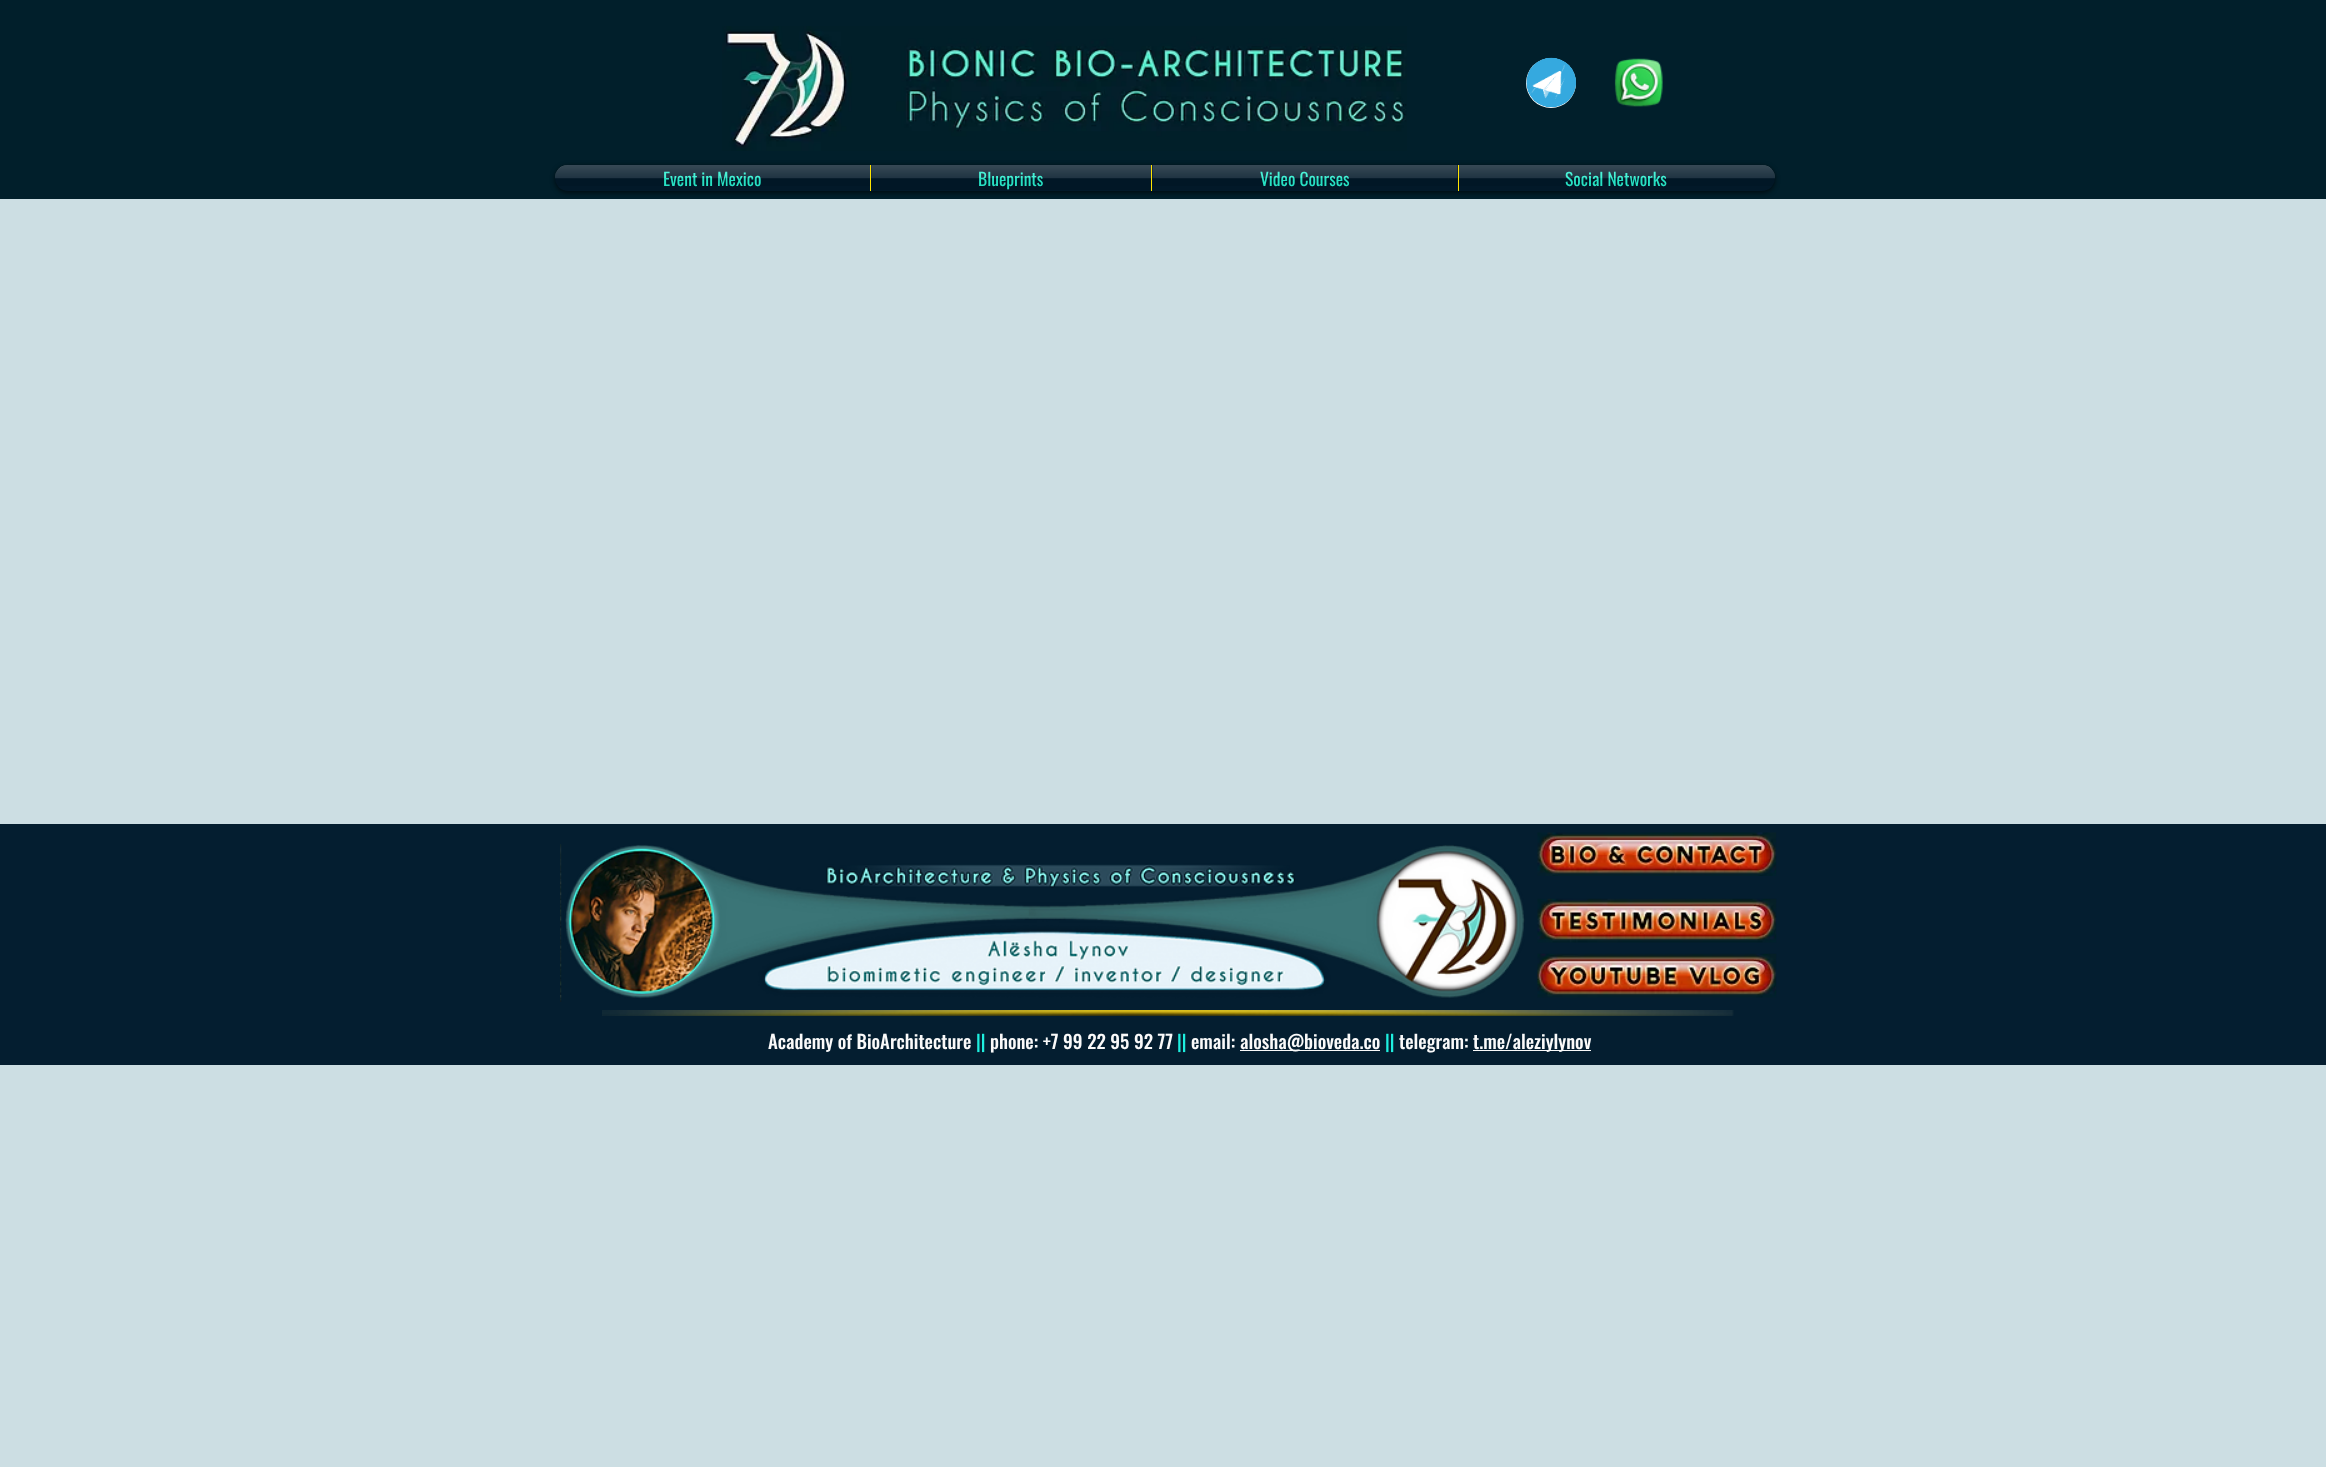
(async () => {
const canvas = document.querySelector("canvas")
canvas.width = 2326
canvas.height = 1467
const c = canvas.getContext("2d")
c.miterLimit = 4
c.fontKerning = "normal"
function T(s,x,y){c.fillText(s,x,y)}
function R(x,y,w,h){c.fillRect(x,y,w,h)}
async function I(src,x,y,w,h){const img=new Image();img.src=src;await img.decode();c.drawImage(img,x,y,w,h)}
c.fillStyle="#ccdee3"
R(0,0,2326,1467)
c.fillStyle="#011f2b"
R(0,0,2326,199)
await I("1.png",722,26,685,125)
c.fillStyle="#fff"
c.beginPath()
c.arc(1551,83,25,0,7)
c.fill()
await I("2.png",1526,57,50,51)
await I("3.png",1614,58,49,49)
c.fillStyle="#00000099"
c.filter="blur(2.5px)"
c.beginPath()
c.roundRect(555,166,1220,27,13)
c.fill()
c.filter="none"
await I("4.png",555,165,1220,14)
c.fillStyle="#021929"
c.beginPath()
c.roundRect(555,165,315,26,[13,0,0,13])
c.fill()
c.font="17.5px Oswald"
c.fillStyle="#2af0d0"
T("Event in Mexico",663,186)
await I("5.png",555,165,315,21)
c.fillStyle="#021929"
R(871,165,280,26)
c.fillStyle="#ffe400"
R(870,165,1,26)
c.fillStyle="#2af0d0"
T("Blueprints",978,186)
await I("6.png",871,165,280,25)
c.fillStyle="#021929"
R(1152,165,306,26)
c.fillStyle="#ffe400"
R(1151,165,1,26)
c.fillStyle="#2af0d0"
T("Video Courses",1260,186)
await I("7.png",1152,165,306,21)
c.fillStyle="#021929"
c.beginPath()
c.roundRect(1458,165,317,26,[0,13,13,0])
c.fill()
c.fillStyle="#ffe400"
R(1458,165,1,26)
c.fillStyle="#2af0d0"
T("Social Networks",1565,186)
await I("8.png",1459,165,316,21)
c.fillStyle="#041e30"
R(0,824,2326,241)
await I("9.png",560,844,965,158)
await I("10.png",1537,832,240,44)
await I("11.png",1537,898,240,45)
await I("12.png",1537,953,240,45)
await I("13.png",602,1010,1132,6)
c.font="500 18.75px Oswald"
c.fillStyle="#fafafa"
T("Academy of BioArchitecture",768,1049)
c.fillStyle="#1eeedf"
T("||",976,1049)
c.fillStyle="#fafafa"
T("phone: +7 99 22 95 92 77",990,1049)
c.fillStyle="#1eeedf"
T("||",1177,1049)
c.fillStyle="#fafafa"
T("email:",1191,1049)
R(1240,1050,140,1)
T("alosha@bioveda.co",1240,1049)
c.fillStyle="#1eeedf"
T("||",1385,1049)
c.fillStyle="#fafafa"
T("telegram:",1399,1049)
R(1473,1050,118,1)
T("t.me/aleziylynov",1473,1049)
})()
